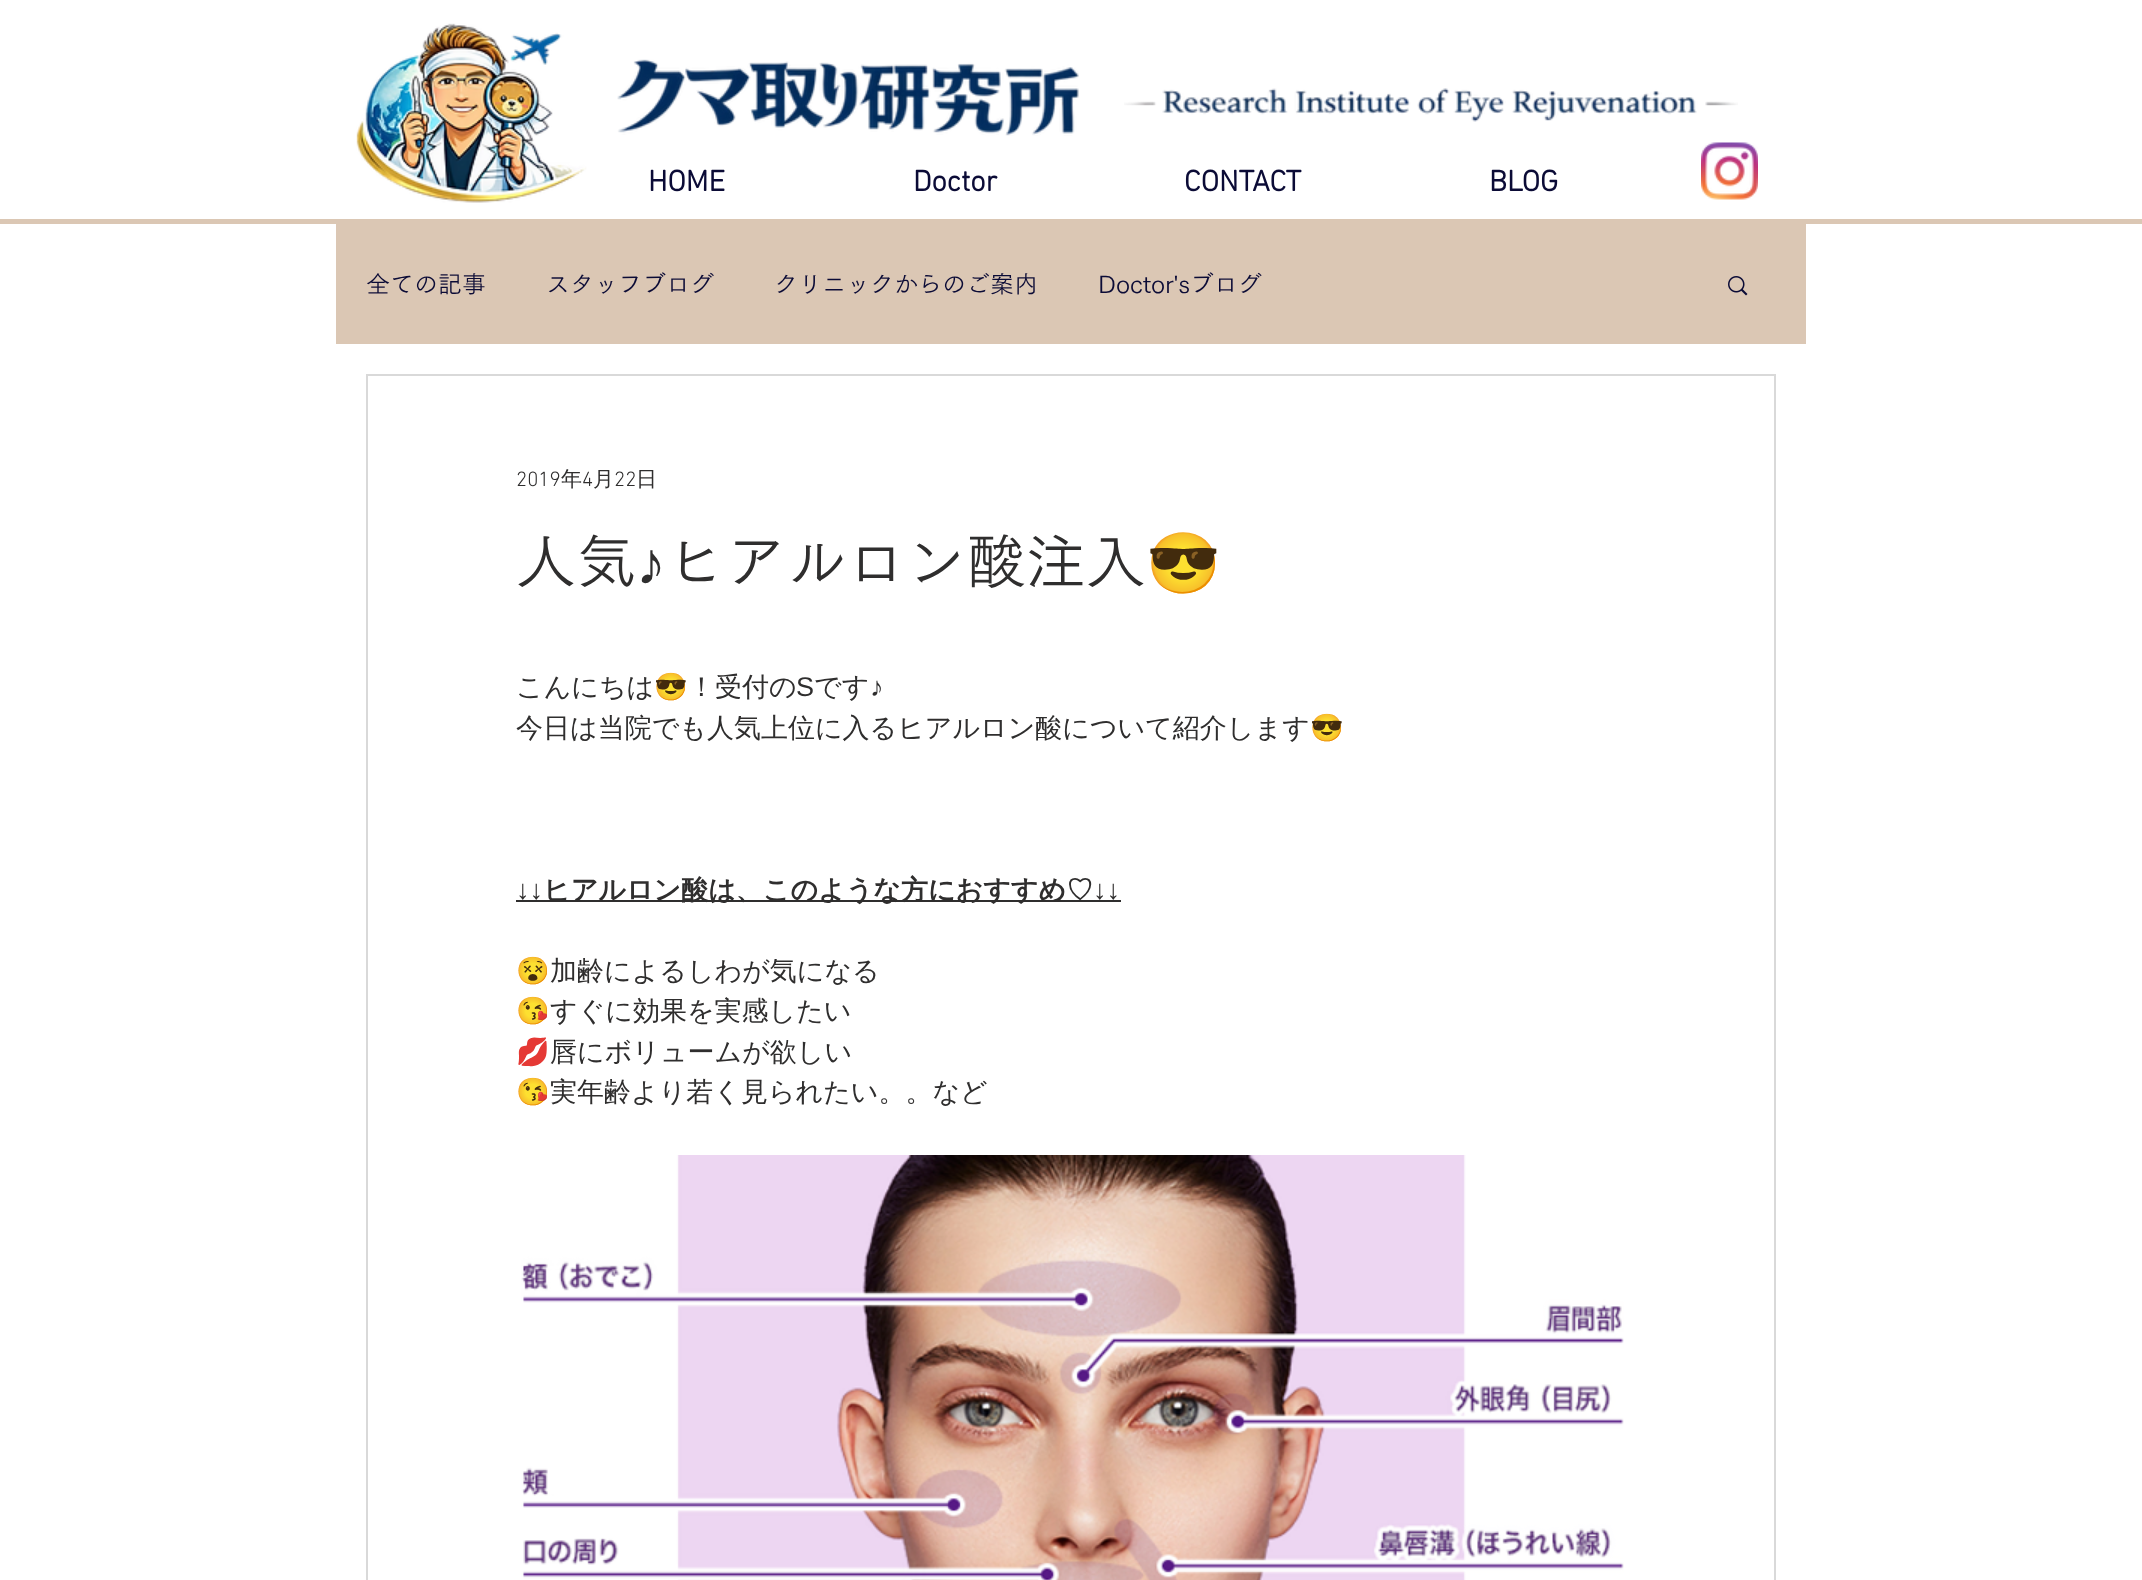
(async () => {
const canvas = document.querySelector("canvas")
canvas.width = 2142
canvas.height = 1580
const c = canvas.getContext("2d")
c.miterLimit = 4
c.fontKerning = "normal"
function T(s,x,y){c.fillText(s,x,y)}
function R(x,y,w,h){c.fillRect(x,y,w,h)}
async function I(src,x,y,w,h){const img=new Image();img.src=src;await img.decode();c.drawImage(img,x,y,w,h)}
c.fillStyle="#fff"
R(0,0,2142,1580)
await I("1.png",356,23,231,180)
await I("2.png",617,59,462,77)
await I("3.png",1124,88,614,34)
c.font="bold 30px 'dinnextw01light'"
c.fillStyle="#0b0b36"
T("HOME",648,191)
T("Doctor",913,191)
T("CONTACT",1184,191)
T("BLOG",1489,191)
await I("4.png",1701,142,57,58)
c.fillStyle="#dbc7b4"
R(0,219,2142,5)
R(336,224,1470,120)
c.font="24px 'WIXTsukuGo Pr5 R'"
c.fillStyle="#0b0b36"
T("全ての記事",366,293)
T("スタッフブログ",546,293)
T("クリニックからのご案内",774,293)
T("Doctor'sブログ",1098,293)
await I("5.png",1728,276,20,20)
c.strokeStyle="#d9d9d9"
c.lineWidth=2
c.strokeRect(367,375,1408,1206)
c.font="300 21px 'dinnextw01light'"
c.fillStyle="#2f2e2e"
T("2019",516,486)
c.font="500 21px WenQuanYi Zen Hei"
T("年",561,486)
c.font="300 21px 'dinnextw01light'"
T("4",582,486)
c.font="500 21px WenQuanYi Zen Hei"
T("月",593,486)
c.font="300 21px 'dinnextw01light'"
T("22",614,486)
c.font="500 21px WenQuanYi Zen Hei"
T("日",636,486)
c.font="60px 'WIXTsukuGo Pr5 R'"
T("人気",516,584)
c.font="60px Liberation Sans"
T("♪",636,584)
c.font="60px 'WIXTsukuGo Pr5 R'"
T("ヒアルロン酸注入",666,584)
c.font="60px Noto Color Emoji"
T("😎",1146,584)
c.font="500 27px WenQuanYi Zen Hei"
T("こんにちは",516,696)
c.font="27px Noto Color Emoji"
T("😎",654,696)
c.font="500 27px WenQuanYi Zen Hei"
T("！受付の",688,696)
c.font="27px Liberation Sans"
T("S",796,696)
c.font="500 27px WenQuanYi Zen Hei"
T("です",814,696)
c.font="27px Liberation Sans"
T("♪",870,696)
c.font="500 27px WenQuanYi Zen Hei"
T("今日は当院でも人気上位に入るヒアルロン酸について紹介します",516,737)
c.font="27px Noto Color Emoji"
T("😎",1310,737)
c.font="bold 27px Liberation Sans"
T("↓↓",516,899)
R(516,900,605,2)
c.font="bold 27px WenQuanYi Zen Hei"
T("ヒアルロン酸は、このような方におすすめ♡",543,899)
c.font="bold 27px Liberation Sans"
T("↓↓",1093,899)
c.font="27px Noto Color Emoji"
T("😵",516,980)
c.font="500 27px WenQuanYi Zen Hei"
T("加齢によるしわが気になる",550,980)
c.font="27px Noto Color Emoji"
T("😘",516,1020)
c.font="500 27px WenQuanYi Zen Hei"
T("すぐに効果を実感したい",550,1020)
c.font="27px Noto Color Emoji"
T("💋",516,1061)
c.font="500 27px WenQuanYi Zen Hei"
T("唇にボリュームが欲しい",550,1061)
c.font="27px Noto Color Emoji"
T("😘",516,1101)
c.font="500 27px WenQuanYi Zen Hei"
T("実年齢より若く見られたい。。など",550,1101)
await I("6.png",521,1155,1103,425)
})()
